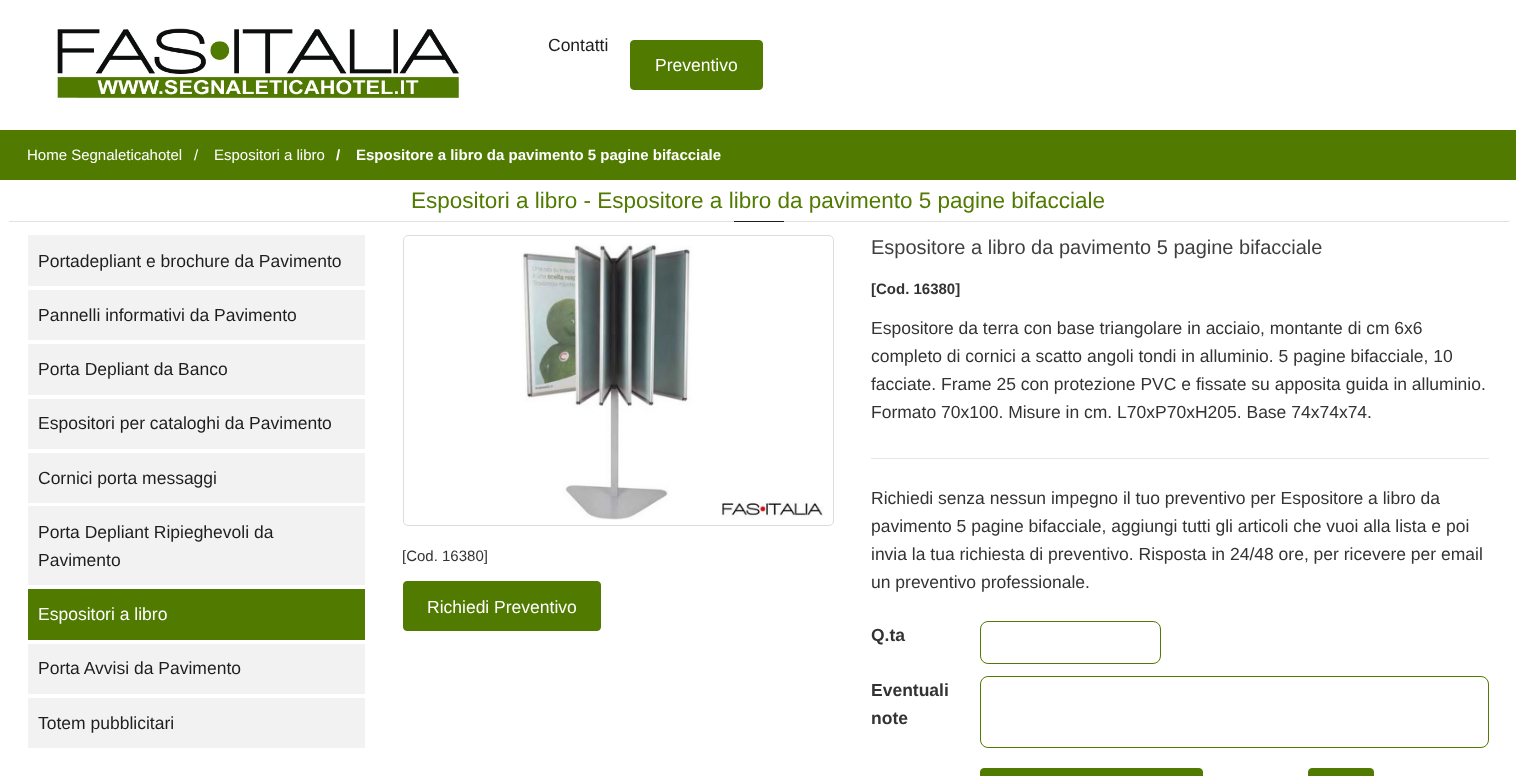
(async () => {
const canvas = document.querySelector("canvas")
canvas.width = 1516
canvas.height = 776
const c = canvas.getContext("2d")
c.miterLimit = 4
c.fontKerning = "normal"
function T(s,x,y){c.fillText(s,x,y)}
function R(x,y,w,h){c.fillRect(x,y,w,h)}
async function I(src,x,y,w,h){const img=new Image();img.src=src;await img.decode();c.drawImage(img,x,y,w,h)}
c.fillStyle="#fff"
R(0,0,1516,776)
await I("1.png",55,28,407,71)
c.font="17.5px Liberation Sans"
c.fillStyle="#1e1e1e"
T("Contatti",548,51)
c.fillStyle="#517a00"
c.beginPath()
c.roundRect(630.5,40.5,132,49,3.5)
c.fill()
c.strokeStyle="#517a00"
c.stroke()
c.fillStyle="#fff"
T("Preventivo",655,71)
c.fillStyle="#517a00"
R(0,130,1516,50)
c.font="15px Liberation Sans"
c.fillStyle="#fff"
T("Home Segnaleticahotel",27,160)
T("/",194,160)
T("Espositori a libro",214,160)
c.font="bold 15px Liberation Sans"
T("/",336,160)
T("Espositore a libro da pavimento 5 pagine bifacciale",356,160)
c.fillStyle="#e1e1e1"
R(9,221,1500,1)
c.font="22.5px Liberation Sans"
c.fillStyle="#517a00"
T("Espositori a libro - Espositore a libro da pavimento 5 pagine bifacciale",411,208)
c.fillStyle="#1e1e1e"
R(734,221,50,1)
c.fillStyle="#f2f2f2"
R(28,235,337,51)
c.font="17.5px Liberation Sans"
c.fillStyle="#1e1e1e"
T("Portadepliant e brochure da Pavimento",38,267)
c.fillStyle="#f2f2f2"
R(28,290,337,50)
c.fillStyle="#1e1e1e"
T("Pannelli informativi da Pavimento",38,321)
c.fillStyle="#f2f2f2"
R(28,344,337,51)
c.fillStyle="#1e1e1e"
T("Porta Depliant da Banco",38,375)
c.fillStyle="#f2f2f2"
R(28,399,337,50)
c.fillStyle="#1e1e1e"
T("Espositori per cataloghi da Pavimento",38,429)
c.fillStyle="#f2f2f2"
R(28,453,337,50)
c.fillStyle="#1e1e1e"
T("Cornici porta messaggi",38,484)
c.fillStyle="#f2f2f2"
R(28,506,337,79)
c.fillStyle="#1e1e1e"
T("Porta Depliant Ripieghevoli da",38,538)
T("Pavimento",38,566)
c.fillStyle="#517a00"
R(28,589,337,51)
c.fillStyle="#fff"
T("Espositori a libro",38,620)
c.fillStyle="#f2f2f2"
R(28,644,337,50)
c.fillStyle="#1e1e1e"
T("Porta Avvisi da Pavimento",38,674)
c.fillStyle="#f2f2f2"
R(28,698,337,50)
c.fillStyle="#1e1e1e"
T("Totem pubblicitari",38,729)
c.beginPath()
c.roundRect(403.5,235.5,430,290,4.5)
c.strokeStyle="#ddd"
c.stroke()
await I("2.png",521,243,303,277)
c.font="15px Liberation Sans"
c.fillStyle="#333"
T("[Cod. 16380]",402,561)
c.fillStyle="#517a00"
c.beginPath()
c.roundRect(403.5,581.5,197,49,3.5)
c.fill()
c.strokeStyle="#517a00"
c.stroke()
c.font="17.5px Liberation Sans"
c.fillStyle="#fff"
T("Richiedi Preventivo",427,613)
c.font="20px Liberation Sans"
c.fillStyle="#3f3f3f"
T("Espositore a libro da pavimento 5 pagine bifacciale",871,254)
c.font="bold 15px Liberation Sans"
c.fillStyle="#333"
T("[Cod. 16380]",871,294)
c.font="17.5px Liberation Sans"
T("Espositore da terra con base triangolare in acciaio, montante di cm 6x6",871,334)
T("completo di cornici a scatto angoli tondi in alluminio. 5 pagine bifacciale, 10",871,362)
T("facciate. Frame 25 con protezione PVC e fissate su apposita guida in alluminio.",871,390)
T("Formato 70x100. Misure in cm. L70xP70xH205. Base 74x74x74.",871,418)
c.fillStyle="#e6e6e6"
R(871,458,618,1)
c.fillStyle="#333"
T("Richiedi senza nessun impegno il tuo preventivo per Espositore a libro da",871,504)
T("pavimento 5 pagine bifacciale, aggiungi tutti gli articoli che vuoi alla lista e poi",871,532)
T("invia la tua richiesta di preventivo. Risposta in 24/48 ore, per ricevere per email",871,560)
T("un preventivo professionale.",871,588)
c.font="bold 17.5px Liberation Sans"
T("Q.ta",871,641)
c.beginPath()
c.roundRect(980.5,621.5,180,42,7.5)
c.stroke()
T("Eventuali",871,696)
T("note",871,724)
c.beginPath()
c.roundRect(980.5,676.5,508,71,7.5)
c.stroke()
c.fillStyle="#517a00"
c.beginPath()
c.roundRect(980.5,768.5,222,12,3.5)
c.fill()
c.stroke()
c.beginPath()
c.roundRect(1308.5,768.5,65,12,3.5)
c.fill()
c.stroke()
})()
